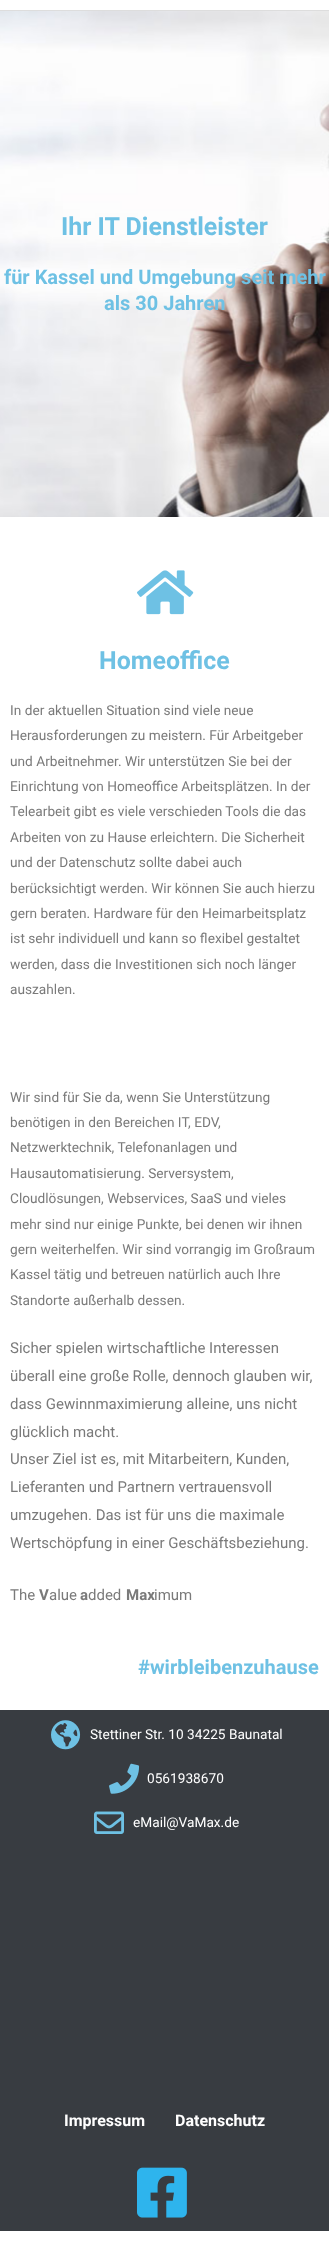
(async () => {
const canvas = document.querySelector("canvas")
canvas.width = 329
canvas.height = 2243
const c = canvas.getContext("2d")
c.miterLimit = 4
c.fontKerning = "normal"
function T(s,x,y){c.fillText(s,x,y)}
function R(x,y,w,h){c.fillRect(x,y,w,h)}
async function I(src,x,y,w,h){const img=new Image();img.src=src;await img.decode();c.drawImage(img,x,y,w,h)}
c.fillStyle="#fff"
R(0,0,329,2243)
c.fillStyle="#ddd"
R(0,10,329,1)
await I("1.png",0,11,329,506)
c.font="bold 25px Roboto"
c.fillStyle="#6ec1e4"
T("Ihr IT Dienstleister",61,235)
c.font="bold 20px Roboto"
T("für Kassel und Umgebung seit mehr",4,284)
T("als 30 Jahren",104,310)
await I("2.png",137,570,57,45)
c.font="bold 25px Roboto"
T("Homeoffice",99,669)
c.font="13.7px Roboto"
c.fillStyle="#7a7a7a"
T("In der aktuellen Situation sind viele neue",10,715)
T("Herausforderungen zu meistern. Für Arbeitgeber",10,740)
T("und Arbeitnehmer. Wir unterstützen Sie bei der",10,766)
T("Einrichtung von Homeoffice Arbeitsplätzen. In der",10,791)
T("Telearbeit gibt es viele verschieden Tools die das",10,816)
T("Arbeiten von zu Hause erleichtern. Die Sicherheit",10,842)
T("und der Datenschutz sollte dabei auch",10,867)
T("berücksichtigt werden. Wir können Sie auch hierzu",10,893)
T("gern beraten. Hardware für den Heimarbeitsplatz",10,918)
T("ist sehr individuell und kann so flexibel gestaltet",10,943)
T("werden, dass die Investitionen sich noch länger",10,969)
T("auszahlen.",10,994)
T("Wir sind für Sie da, wenn Sie Unterstützung",10,1102)
T("benötigen in den Bereichen IT, EDV,",10,1127)
T("Netzwerktechnik, Telefonanlagen und",10,1152)
T("Hausautomatisierung. Serversystem,",10,1178)
T("Cloudlösungen, Webservices, SaaS und vieles",10,1203)
T("mehr sind nur einige Punkte, bei denen wir ihnen",10,1229)
T("gern weiterhelfen. Wir sind vorrangig im Großraum",10,1254)
T("Kassel tätig und betreuen natürlich auch Ihre",10,1279)
T("Standorte außerhalb dessen.",10,1305)
c.font="15px Roboto"
T("Sicher spielen wirtschaftliche Interessen",10,1353)
T("überall eine große Rolle, dennoch glauben wir,",10,1381)
T("dass Gewinnmaximierung alleine, uns nicht",10,1409)
T("glücklich macht.",10,1437)
T("Unser Ziel ist es, mit Mitarbeitern, Kunden,",10,1464)
T("Lieferanten und Partnern vertrauensvoll",10,1492)
T("umzugehen. Das ist für uns die maximale",10,1520)
T("Wertschöpfung in einer Geschäftsbeziehung.",10,1548)
T("The",10,1600)
c.font="bold 15px Roboto"
T("V",39,1600)
c.font="15px Roboto"
T("alue",49,1600)
c.font="bold 15px Roboto"
T("a",80,1600)
c.font="15px Roboto"
T("dded",88,1600)
c.font="bold 15px Roboto"
T("Max",126,1600)
c.font="15px Roboto"
T("imum",154,1600)
c.font="bold 20px Roboto"
c.fillStyle="#6ec1e4"
T("#wirbleibenzuhause",138,1674)
c.fillStyle="#383c41"
R(0,1710,329,521)
await I("3.png",51,1720,30,30)
c.font="13.7px Roboto"
c.fillStyle="#fff"
T("Stettiner Str. 10 34225 Baunatal",90,1739)
await I("4.png",109,1763,31,31)
T("0561938670",147,1783)
await I("5.png",94,1811,30,23)
T("eMail@VaMax.de",133,1827)
c.font="bold 16px Roboto"
T("Impressum",64,2126)
T("Datenschutz",175,2126)
await I("6.png",137,2167,50,51)
})()
